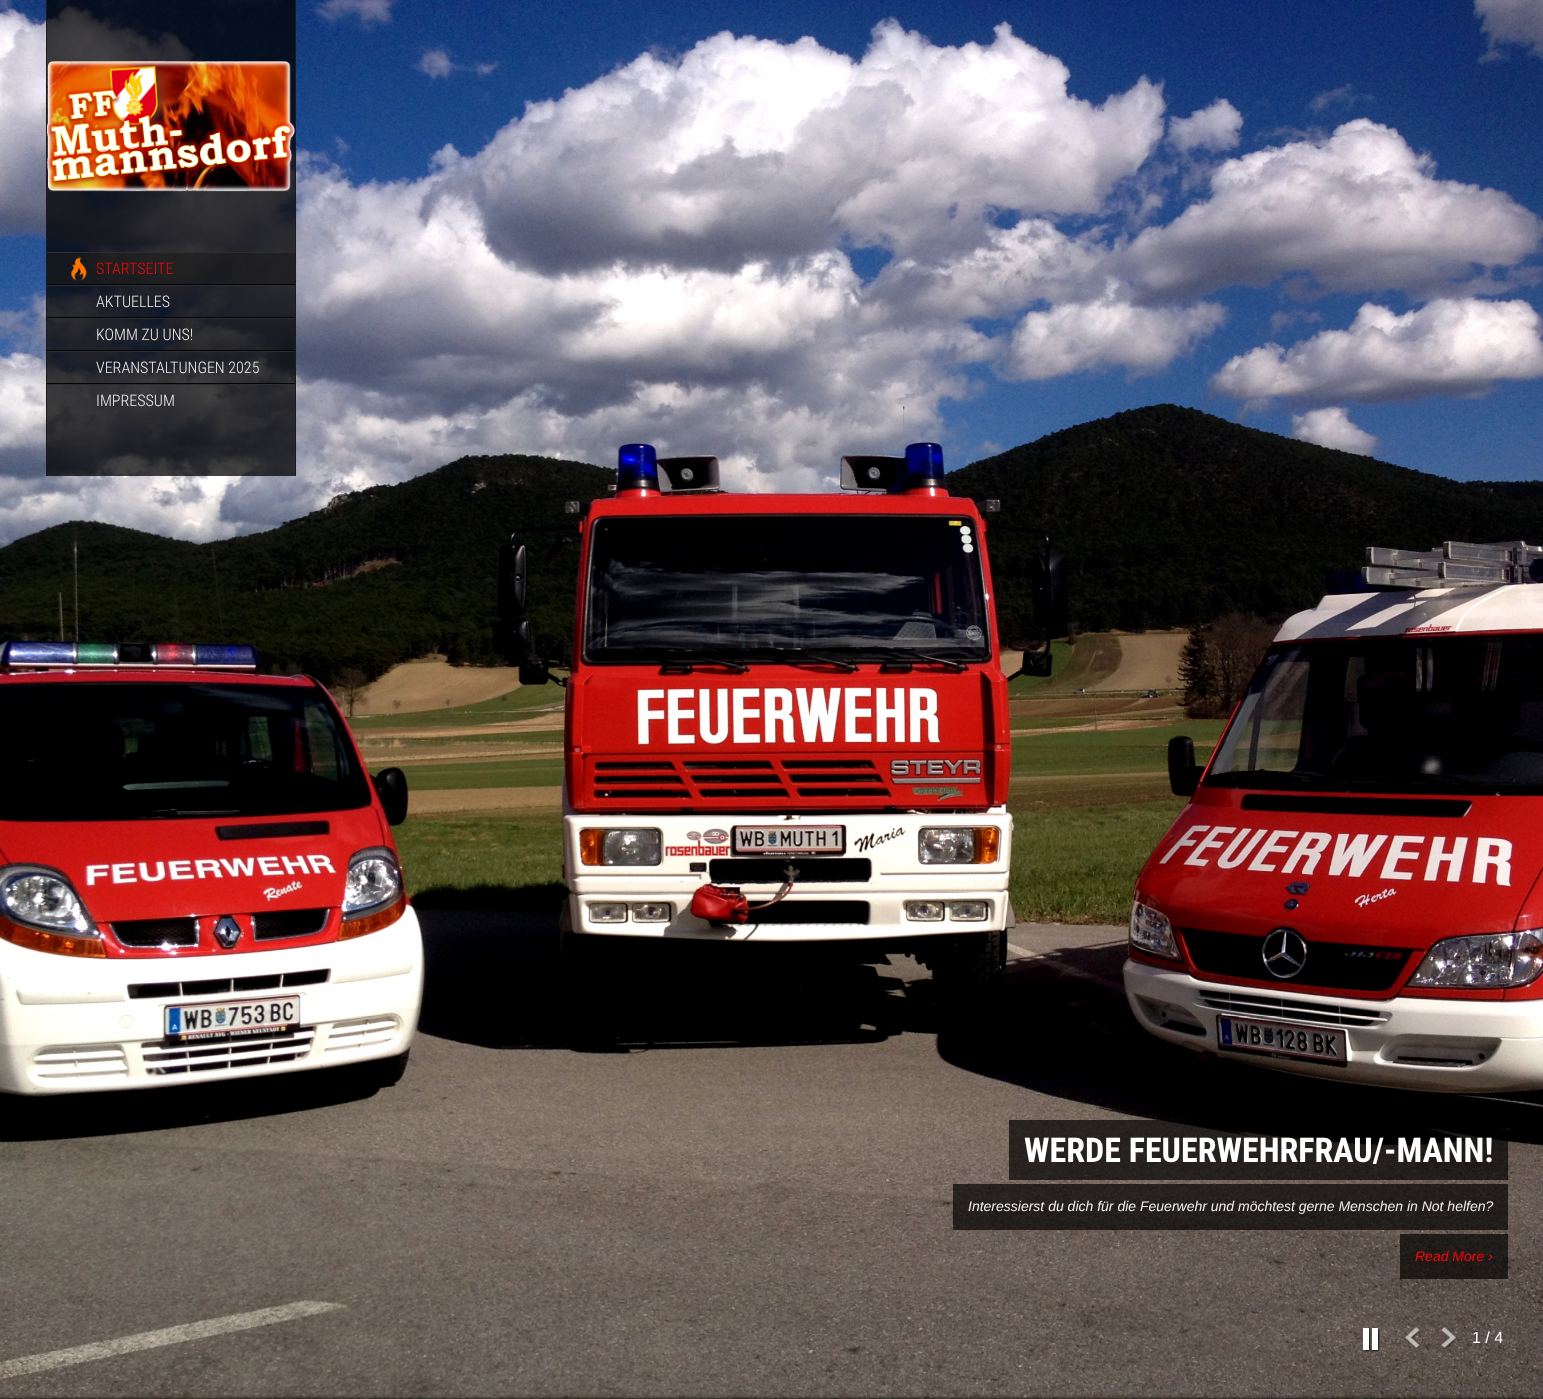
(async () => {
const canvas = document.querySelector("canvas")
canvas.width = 1543
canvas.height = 1399
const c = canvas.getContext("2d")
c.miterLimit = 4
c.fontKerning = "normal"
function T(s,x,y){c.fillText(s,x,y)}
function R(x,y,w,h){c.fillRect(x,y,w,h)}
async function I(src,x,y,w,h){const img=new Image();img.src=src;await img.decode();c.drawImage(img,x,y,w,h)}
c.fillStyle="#fff"
R(0,0,1543,1399)
await I("1.png",0,0,1543,1399)
c.fillStyle="#1b1b1b"
R(295,0,1,476)
R(46,0,1,476)
c.fillStyle="#000000bd"
R(47,0,248,252)
await I("2.png",47,61,248,131)
R(47,253,248,223)
c.fillStyle="#1b1b1b99"
R(47,253,248,31)
c.fillStyle="#2c2d2e"
R(47,252,248,1)
c.fillStyle="#040506"
R(47,284,248,1)
await I("3.png",71,256,16,25)
c.font="300 16px Roboto Condensed"
c.fillStyle="#ff0505"
T("STARTSEITE",96,274)
c.fillStyle="#2c2d2e"
R(47,285,248,1)
c.fillStyle="#040506"
R(47,317,248,1)
c.fillStyle="#eeeded"
T("AKTUELLES",96,307)
c.fillStyle="#2c2d2e"
R(47,318,248,1)
c.fillStyle="#040506"
R(47,350,248,1)
c.fillStyle="#eeeded"
T("KOMM ZU UNS!",96,340)
c.fillStyle="#2c2d2e"
R(47,351,248,1)
c.fillStyle="#040506"
R(47,383,248,1)
c.fillStyle="#eeeded"
T("VERANSTALTUNGEN 2025",96,373)
c.fillStyle="#2c2d2e"
R(47,384,248,1)
c.fillStyle="#eeeded"
T("IMPRESSUM",96,406)
c.fillStyle="#000000ab"
R(1009,1120,499,60)
c.font="bold 34px Roboto Condensed"
c.fillStyle="#fff"
T("WERDE FEUERWEHRFRAU/-MANN!",1024,1162)
c.fillStyle="#000000ab"
R(953,1184,555,46)
c.font="italic 14px Liberation Sans"
c.fillStyle="#eeeded"
T("Interessierst du dich für die Feuerwehr und möchtest gerne Menschen in Not helfen?",968,1211)
c.fillStyle="#000000ab"
R(1400,1234,108,45)
c.fillStyle="#ff0505"
T("Read More ›",1415,1261)
await I("4.png",1363,1328,17,24)
await I("5.png",1404,1327,17,23)
await I("6.png",1441,1327,17,22)
c.font="16px Liberation Sans"
c.fillStyle="#fff"
T("1 / 4",1472,1343)
c.fillStyle="#000"
c.filter="blur(2px)"
c.beginPath()
c.rect(0,1399,1543,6)
c.fill()
c.filter="none"
})()
